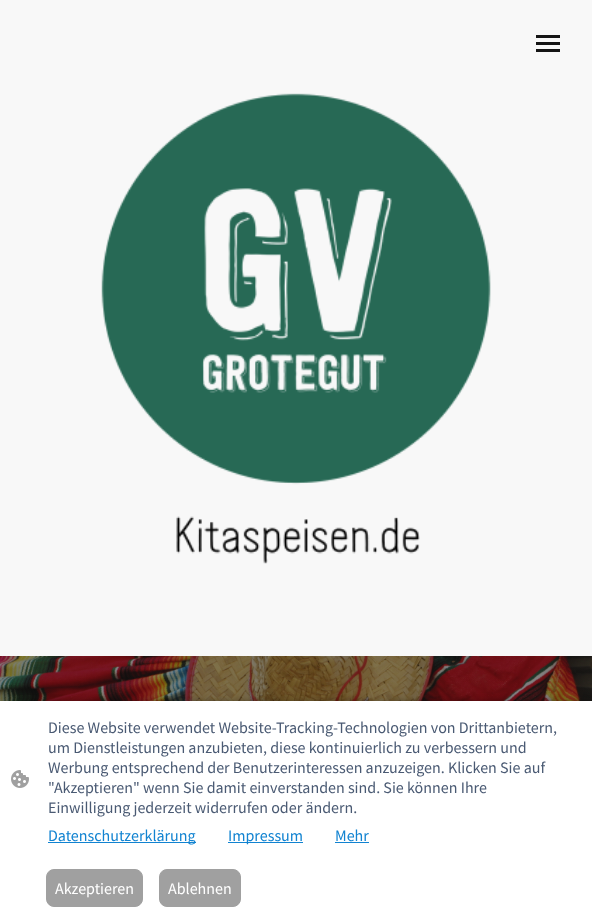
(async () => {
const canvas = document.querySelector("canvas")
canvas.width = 592
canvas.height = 915
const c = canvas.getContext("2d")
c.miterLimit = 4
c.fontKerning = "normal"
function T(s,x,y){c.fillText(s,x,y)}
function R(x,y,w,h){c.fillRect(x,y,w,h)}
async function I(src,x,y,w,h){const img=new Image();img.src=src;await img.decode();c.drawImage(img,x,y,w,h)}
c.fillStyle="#f8f8f8"
R(0,0,592,915)
c.fillStyle="#151515"
R(536,35,24,3)
R(536,42,24,3)
R(536,49,24,3)
await I("1.png",101,93,390,471)
await I("2.png",0,656,592,45)
c.fillStyle="#000000a1"
c.filter="blur(4px)"
c.beginPath()
c.rect(6,704,580,202)
c.fill()
c.filter="none"
c.fillStyle="#fff"
R(0,701,592,214)
await I("3.png",11,770,18,18)
c.font="16px Source Sans Pro"
c.fillStyle="#4a5a73"
T("Diese Website verwendet Website-Tracking-Technologien von Drittanbietern,",48,733)
T("um Dienstleistungen anzubieten, diese kontinuierlich zu verbessern und",48,753)
T("Werbung entsprechend der Benutzerinteressen anzuzeigen. Klicken Sie auf",48,773)
T("\"Akzeptieren\" wenn Sie damit einverstanden sind. Sie können Ihre",48,793)
T("Einwilligung jederzeit widerrufen oder ändern.",48,813)
c.fillStyle="#1183d1"
R(48,842,148,1)
T("Datenschutzerklärung",48,841)
R(228,842,75,1)
T("Impressum",228,841)
T("Mehr",335,841)
R(335,842,34,1)
c.fillStyle="#a0a0a0"
c.beginPath()
c.roundRect(46.5,869.5,96,37,7.5)
c.fill()
c.strokeStyle="#a0a0a0"
c.stroke()
c.fillStyle="#fff"
T("Akzeptieren",55,894)
c.fillStyle="#a0a0a0"
c.beginPath()
c.roundRect(159.5,869.5,81,37,7.5)
c.fill()
c.stroke()
c.fillStyle="#fff"
T("Ablehnen",168,894)
})()
